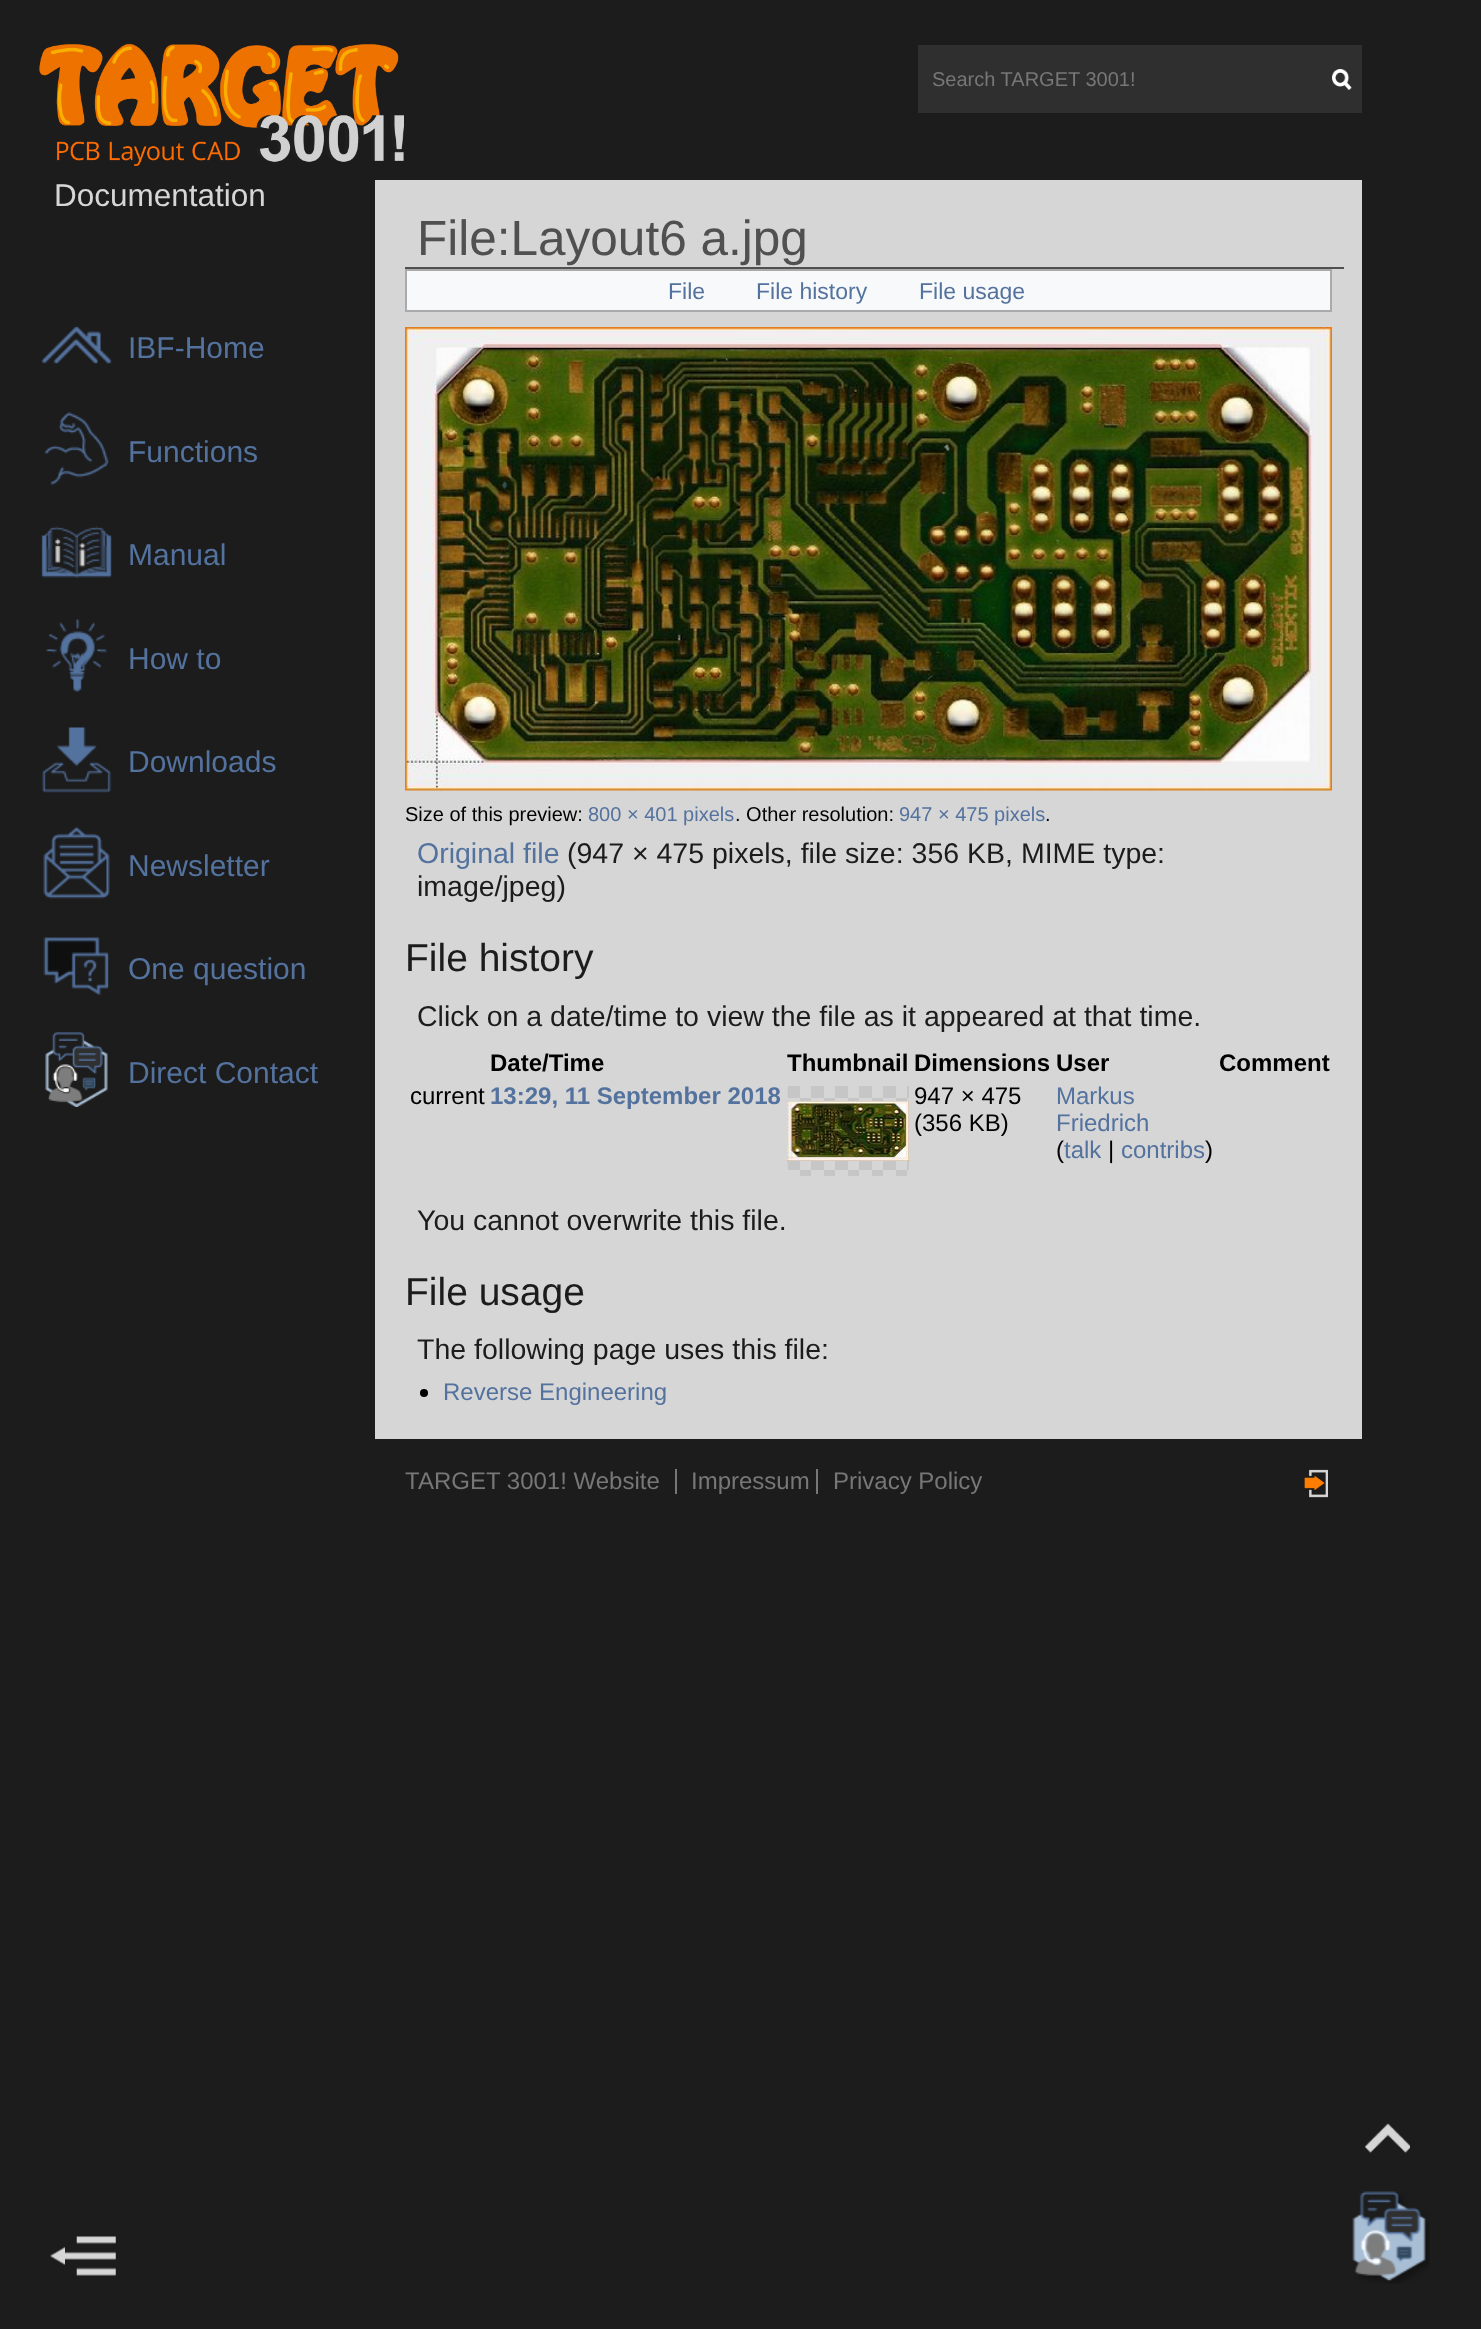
(async () => {
const canvas = document.querySelector("canvas")
canvas.width = 1481
canvas.height = 2329
const c = canvas.getContext("2d")
c.miterLimit = 4
c.fontKerning = "normal"
function T(s,x,y){c.fillText(s,x,y)}
function R(x,y,w,h){c.fillRect(x,y,w,h)}
async function I(src,x,y,w,h){const img=new Image();img.src=src;await img.decode();c.drawImage(img,x,y,w,h)}
c.fillStyle="#1c1c1c"
R(0,0,1481,2329)
await I("1.png",39,43,365,123)
c.fillStyle="#2f2f2f"
R(918,45,444,68)
c.font="20px Liberation Sans"
c.fillStyle="#777"
T("Search TARGET 3001!",932,86)
await I("2.png",1332,69,20,21)
c.font="31.5px Liberation Sans"
c.fillStyle="#d6d6d6"
T("Documentation",54,206)
await I("3.png",41,326,71,38)
c.font="30px Liberation Sans"
c.fillStyle="#54729e"
T("IBF-Home",128,358)
await I("4.png",44,412,65,73)
T("Functions",128,462)
await I("5.png",41,526,71,52)
T("Manual",128,565)
await I("6.png",46,619,61,73)
T("How to",128,669)
await I("7.png",41,727,71,66)
T("Downloads",128,772)
await I("8.png",43,826,67,73)
T("Newsletter",128,876)
await I("9.png",43,937,66,59)
T("One question",128,979)
await I("10.png",45,1032,63,75)
T("Direct Contact",128,1083)
await I("11.png",1365,2123,45,30)
await I("12.png",50,2236,66,40)
await I("13.png",1352,2191,78,93)
c.fillStyle="#d6d6d6"
R(375,180,987,1259)
c.fillStyle="#505050"
R(405,267,939,2)
c.font="49.5px Liberation Sans"
T("File:Layout6 a.jpg",417,255)
c.fillStyle="#f8f9fa"
c.beginPath()
c.rect(406,270,925,41)
c.fill()
c.strokeStyle="#aaa"
c.lineWidth=2
c.stroke()
c.font="23px Liberation Sans"
c.fillStyle="#54729e"
T("File",668,299)
T("File history",756,299)
T("File usage",919,299)
await I("14.png",405,327,927,464)
c.font="20px Liberation Sans"
c.fillStyle="#000"
T("Size of this preview:",405,821)
c.fillStyle="#54729e"
T("800 × 401 pixels",588,821)
c.fillStyle="#000"
T(". Other resolution:",735,821)
c.fillStyle="#54729e"
T("947 × 475 pixels",899,821)
c.fillStyle="#000"
T(".",1045,821)
c.font="28.5px Liberation Sans"
c.fillStyle="#54729e"
T("Original file",417,863)
c.fillStyle="#1c1c1c"
T("(947 × 475 pixels, file size: 356 KB, MIME type:",567,863)
T("image/jpeg)",417,896)
c.font="39px Liberation Sans"
T("File history",405,971)
c.font="28.5px Liberation Sans"
T("Click on a date/time to view the file as it appeared at that time.",417,1026)
c.font="bold 24px Liberation Sans"
c.fillStyle="#000"
T("Date/Time",490,1071)
T("Thumbnail",787,1071)
T("Dimensions",914,1071)
T("User",1056,1071)
T("Comment",1219,1071)
c.font="24px Liberation Sans"
T("current",410,1104)
c.font="bold 24px Liberation Sans"
c.fillStyle="#54729e"
T("13:29, 11 September 2018",490,1104)
await I("15.png",787,1086,122,90)
await I("16.png",787,1101,1,60)
c.font="24px Liberation Sans"
c.fillStyle="#000"
T("947 × 475",914,1104)
T("(356 KB)",914,1131)
c.fillStyle="#54729e"
T("Markus",1056,1104)
T("Friedrich",1056,1131)
c.fillStyle="#000"
T("(",1056,1158)
c.fillStyle="#54729e"
T("talk",1064,1158)
c.fillStyle="#000"
T("|",1108,1158)
c.fillStyle="#54729e"
T("contribs",1121,1158)
c.fillStyle="#000"
T(")",1205,1158)
c.font="28.5px Liberation Sans"
c.fillStyle="#1c1c1c"
T("You cannot overwrite this file.",417,1230)
c.font="39px Liberation Sans"
T("File usage",405,1305)
c.font="28.5px Liberation Sans"
T("The following page uses this file:",417,1359)
c.fillStyle="#000"
c.beginPath()
c.arc(424,1393,4,0,7)
c.fill()
c.font="24px Liberation Sans"
c.fillStyle="#54729e"
T("Reverse Engineering",443,1400)
c.fillStyle="#777"
T("TARGET 3001! Website",405,1489)
T("Impressum",691,1489)
R(675,1469,2,25)
T("Privacy Policy",833,1489)
R(816,1469,2,25)
await I("17.png",1304,1469,24,29)
})()
